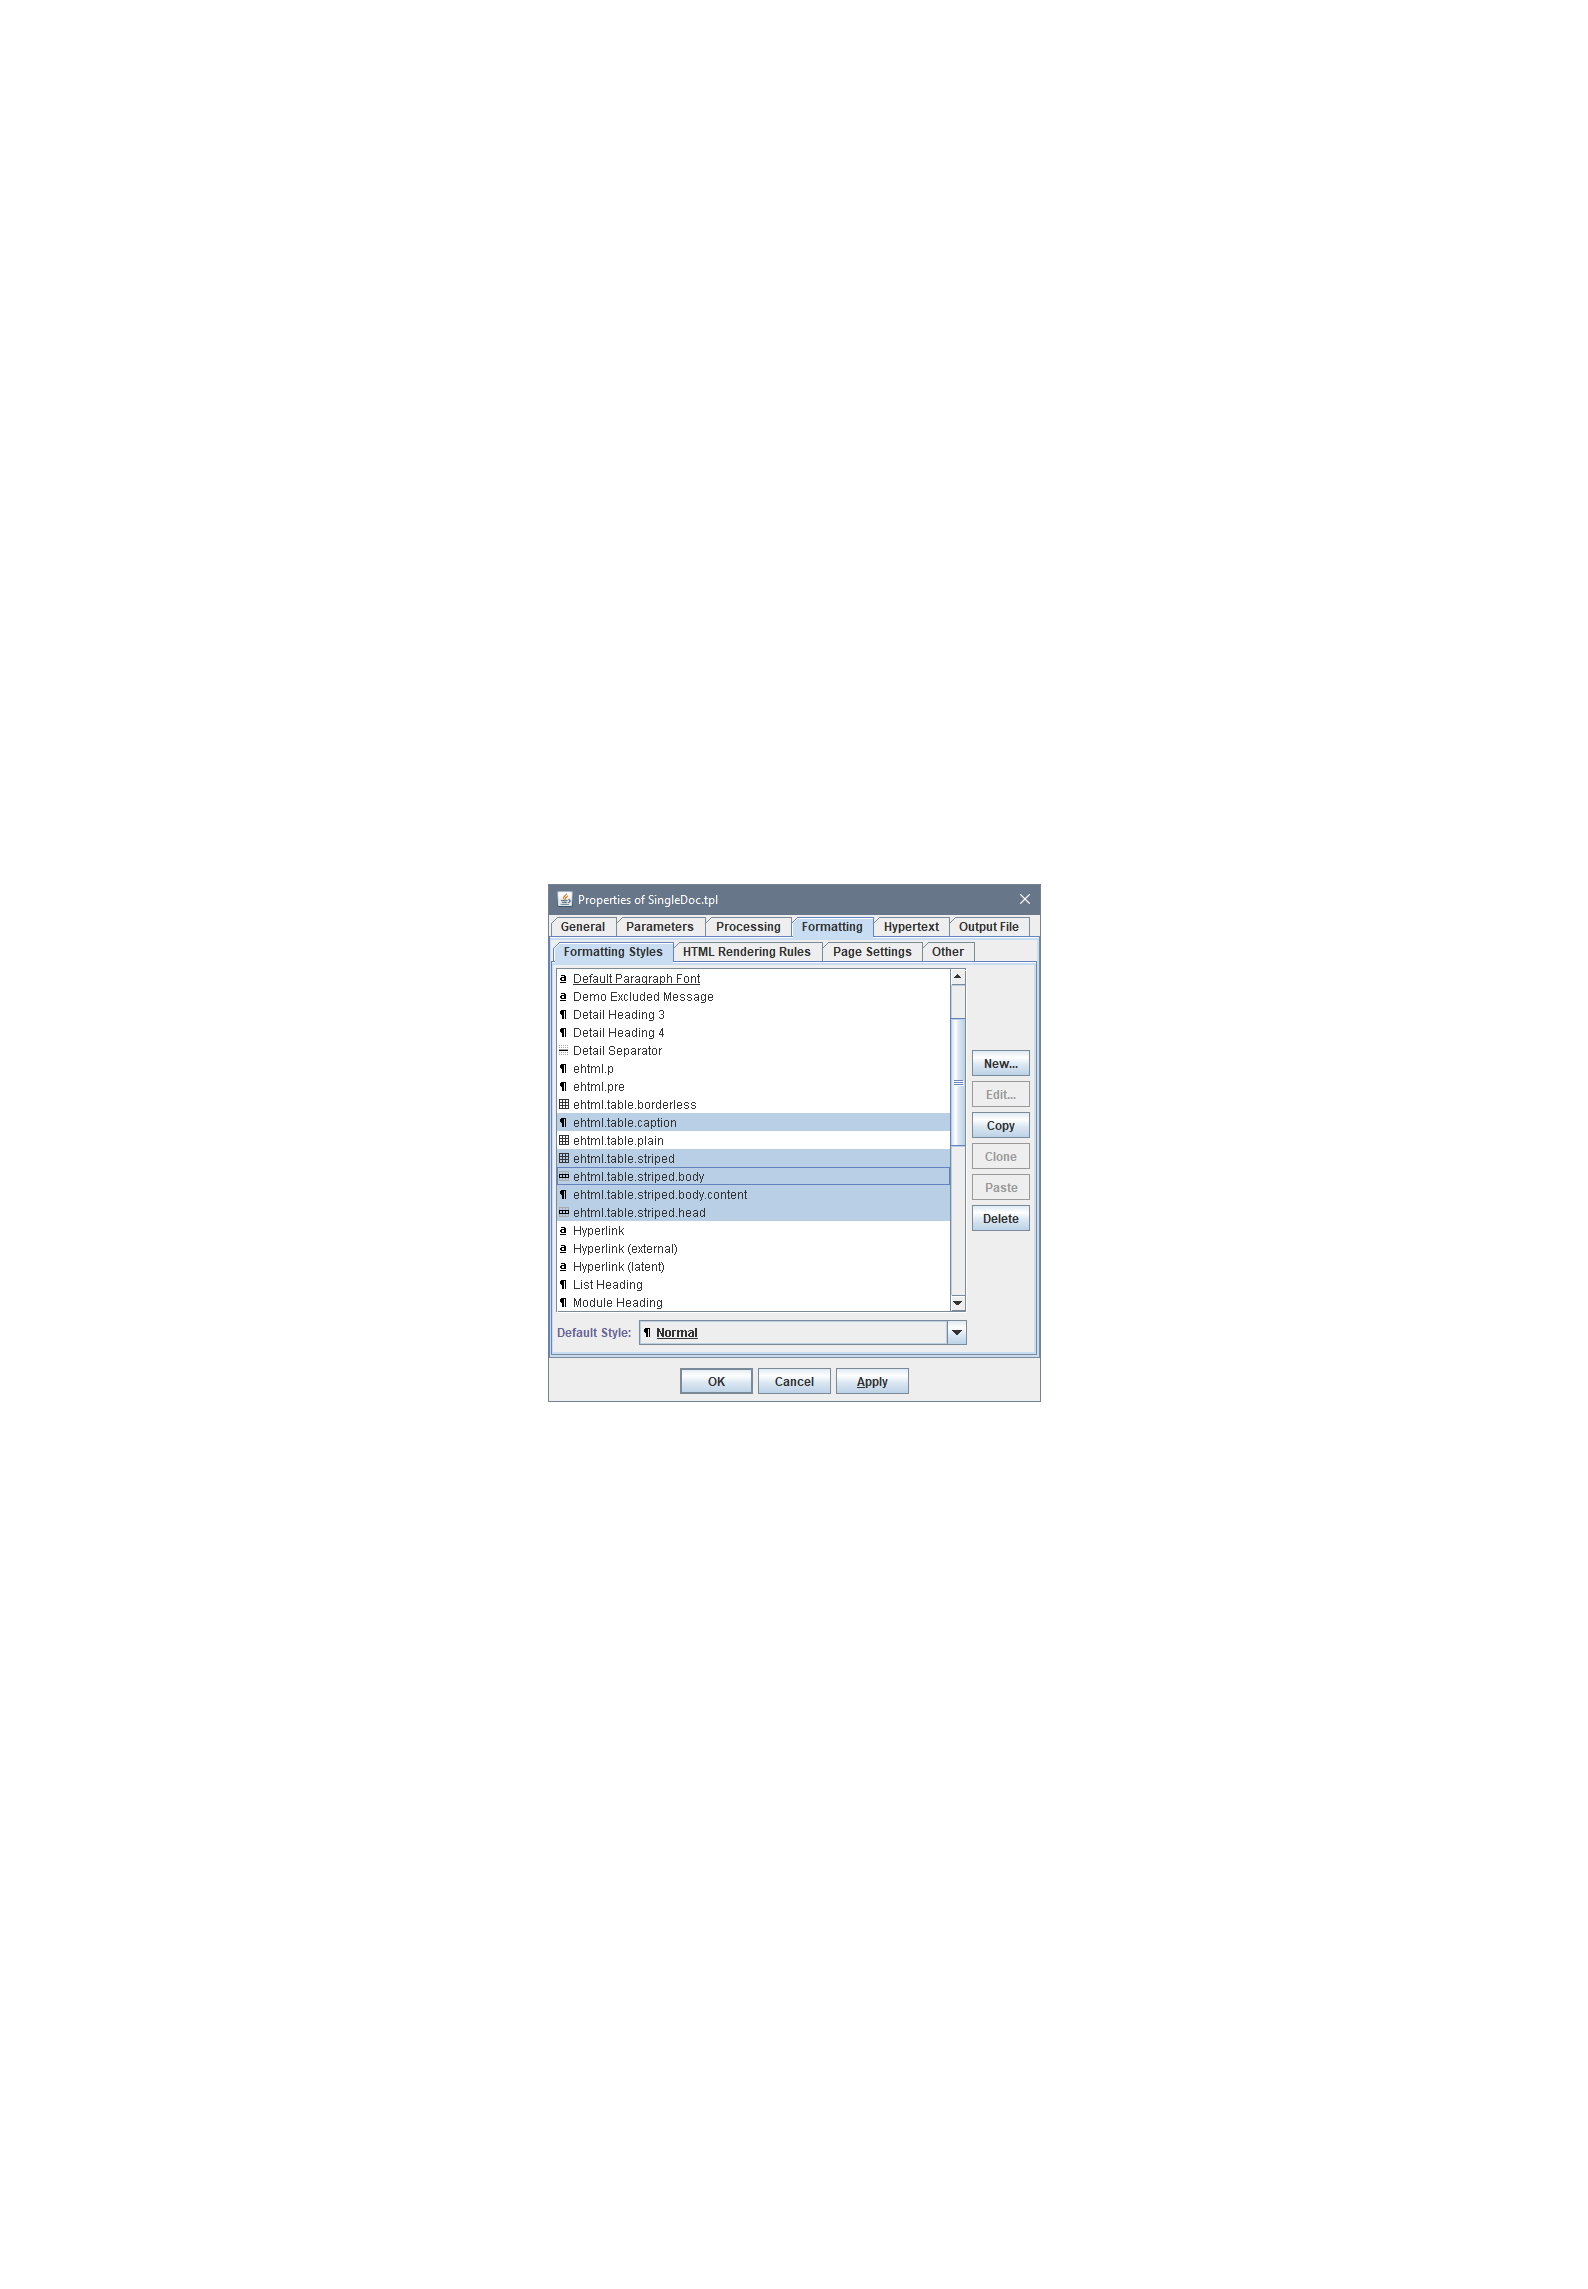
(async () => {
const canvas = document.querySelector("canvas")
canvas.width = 1588
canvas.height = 2289
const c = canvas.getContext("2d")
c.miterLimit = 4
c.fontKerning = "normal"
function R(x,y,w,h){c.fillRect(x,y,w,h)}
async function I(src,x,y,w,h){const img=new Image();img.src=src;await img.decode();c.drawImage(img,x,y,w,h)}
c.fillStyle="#fff"
R(0,0,1588,2289)
await I("1.png",548,884,493,518)
})()
